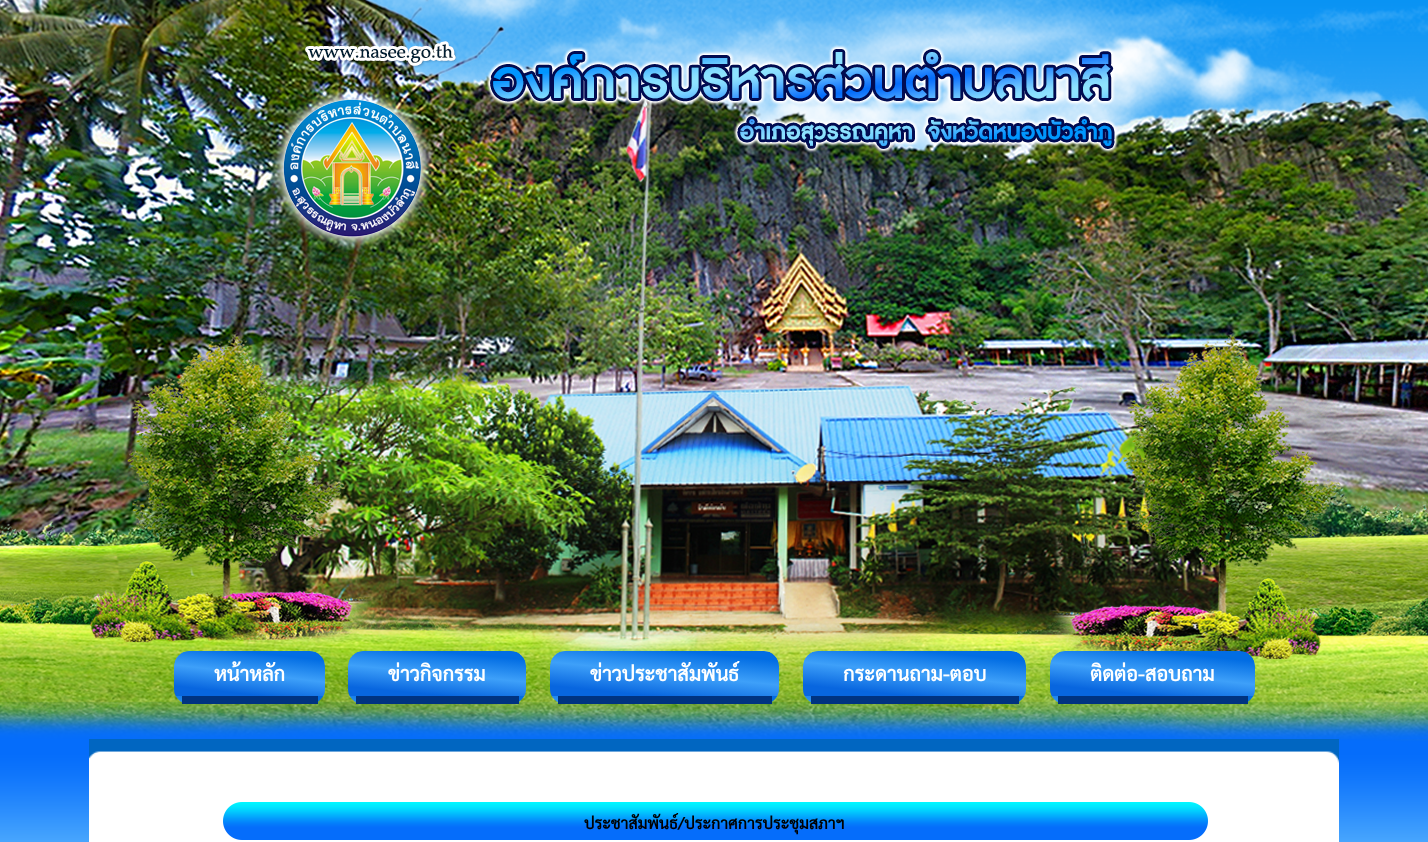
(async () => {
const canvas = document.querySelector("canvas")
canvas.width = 1428
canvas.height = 842
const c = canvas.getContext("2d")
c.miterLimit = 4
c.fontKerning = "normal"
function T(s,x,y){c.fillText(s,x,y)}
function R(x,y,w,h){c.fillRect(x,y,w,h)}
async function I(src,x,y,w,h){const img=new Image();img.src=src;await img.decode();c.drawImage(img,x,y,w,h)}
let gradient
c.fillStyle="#fff"
R(0,0,1428,842)
await I("1.png",0,0,89,739)
await I("2.png",89,0,1250,739)
await I("3.png",270,86,164,164)
await I("4.png",486,45,633,108)
c.save()
c.beginPath()
c.roundRect(174,651,151,53,15)
c.clip()
gradient = c.createLinearGradient(246,704,253,643)
gradient.addColorStop(.16,"#0866df")
gradient.addColorStop(.5,"#3ea0f9")
gradient.addColorStop(.85,"#026de3")
c.fillStyle = gradient
c.beginPath()
c.roundRect(174,651,151,45,[15,15,0,0])
c.fill()
gradient = c.createLinearGradient(246,749,253,688)
gradient.addColorStop(.16,"#0866df")
gradient.addColorStop(.5,"#3ea0f9")
gradient.addColorStop(.85,"#026de3")
c.fillStyle = gradient
R(174,696,151,7)
c.restore()
c.fillStyle="#003380"
R(182,696,136,8)
c.font="bold 20px Sarabun"
c.fillStyle="#fff"
T("หน้าหลัก",214,681)
c.save()
c.beginPath()
c.roundRect(348,651,178,53,15)
c.clip()
gradient = c.createLinearGradient(434,705,440,642)
gradient.addColorStop(.16,"#0866df")
gradient.addColorStop(.5,"#3ea0f9")
gradient.addColorStop(.85,"#026de3")
c.fillStyle = gradient
c.beginPath()
c.roundRect(348,651,178,45,[15,15,0,0])
c.fill()
gradient = c.createLinearGradient(434,750,440,687)
gradient.addColorStop(.16,"#0866df")
gradient.addColorStop(.5,"#3ea0f9")
gradient.addColorStop(.85,"#026de3")
c.fillStyle = gradient
R(348,696,178,7)
c.restore()
c.fillStyle="#003380"
R(356,696,163,8)
c.fillStyle="#fff"
T("ข่าวกิจกรรม",388,681)
c.save()
c.beginPath()
c.roundRect(550,651,229,53,15)
c.clip()
gradient = c.createLinearGradient(661,708,668,639)
gradient.addColorStop(.16,"#0866df")
gradient.addColorStop(.5,"#3ea0f9")
gradient.addColorStop(.85,"#026de3")
c.fillStyle = gradient
c.beginPath()
c.roundRect(550,651,229,45,[15,15,0,0])
c.fill()
gradient = c.createLinearGradient(661,753,668,684)
gradient.addColorStop(.16,"#0866df")
gradient.addColorStop(.5,"#3ea0f9")
gradient.addColorStop(.85,"#026de3")
c.fillStyle = gradient
R(550,696,229,7)
c.restore()
c.fillStyle="#003380"
R(558,696,214,8)
c.fillStyle="#fff"
T("ข่าวประชาสัมพันธ์",590,681)
c.save()
c.beginPath()
c.roundRect(803,651,223,53,15)
c.clip()
gradient = c.createLinearGradient(911,707,918,640)
gradient.addColorStop(.16,"#0866df")
gradient.addColorStop(.5,"#3ea0f9")
gradient.addColorStop(.85,"#026de3")
c.fillStyle = gradient
c.beginPath()
c.roundRect(803,651,223,45,[15,15,0,0])
c.fill()
gradient = c.createLinearGradient(911,752,918,685)
gradient.addColorStop(.16,"#0866df")
gradient.addColorStop(.5,"#3ea0f9")
gradient.addColorStop(.85,"#026de3")
c.fillStyle = gradient
R(803,696,223,7)
c.restore()
c.fillStyle="#003380"
R(811,696,208,8)
c.fillStyle="#fff"
T("กระดานถาม-ตอบ",843,681)
c.save()
c.beginPath()
c.roundRect(1050,651,205,53,15)
c.clip()
gradient = c.createLinearGradient(1149,706,1156,641)
gradient.addColorStop(.16,"#0866df")
gradient.addColorStop(.5,"#3ea0f9")
gradient.addColorStop(.85,"#026de3")
c.fillStyle = gradient
c.beginPath()
c.roundRect(1050,651,205,45,[15,15,0,0])
c.fill()
gradient = c.createLinearGradient(1149,751,1156,686)
gradient.addColorStop(.16,"#0866df")
gradient.addColorStop(.5,"#3ea0f9")
gradient.addColorStop(.85,"#026de3")
c.fillStyle = gradient
R(1050,696,205,7)
c.restore()
c.fillStyle="#003380"
R(1058,696,190,8)
c.fillStyle="#fff"
T("ติดต่อ-สอบถาม",1090,681)
await I("5.png",1339,0,89,739)
await I("6.png",0,739,89,103)
await I("7.png",89,739,1250,59)
await I("8.png",223,802,985,38)
c.font="bold 16px Sarabun"
c.fillStyle="#000"
T("ประชาสัมพันธ์/ประกาศการประชุมสภาฯ",584,829)
await I("9.png",1339,739,89,103)
})()
